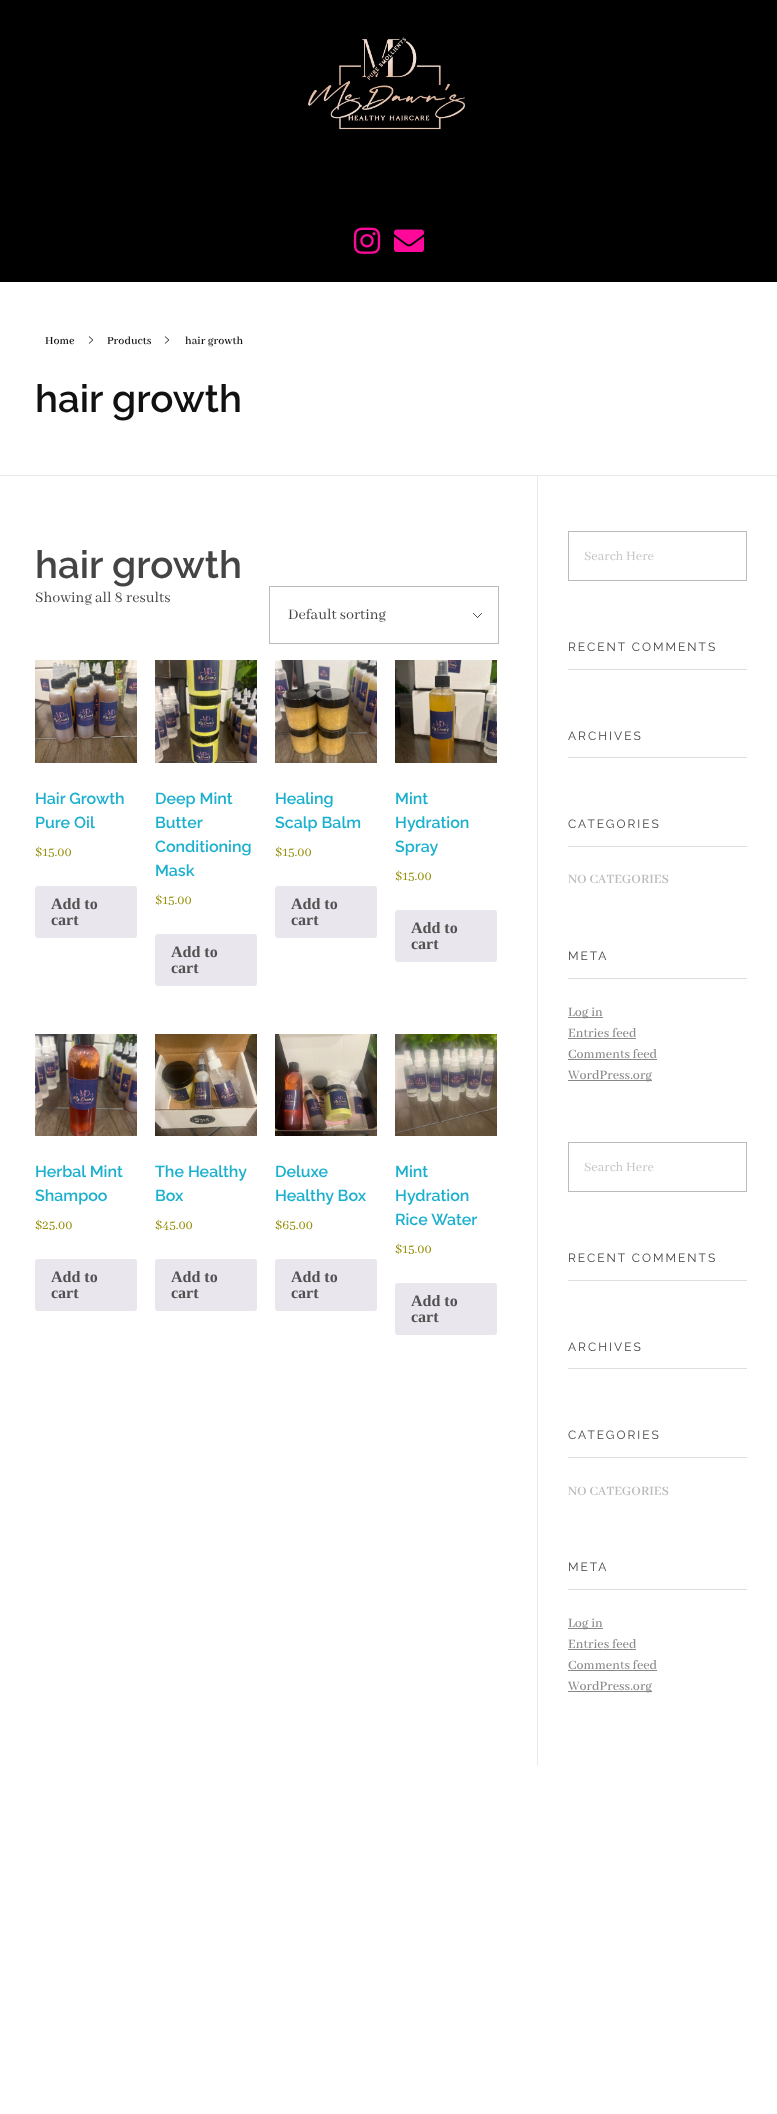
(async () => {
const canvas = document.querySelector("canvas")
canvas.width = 777
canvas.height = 2114
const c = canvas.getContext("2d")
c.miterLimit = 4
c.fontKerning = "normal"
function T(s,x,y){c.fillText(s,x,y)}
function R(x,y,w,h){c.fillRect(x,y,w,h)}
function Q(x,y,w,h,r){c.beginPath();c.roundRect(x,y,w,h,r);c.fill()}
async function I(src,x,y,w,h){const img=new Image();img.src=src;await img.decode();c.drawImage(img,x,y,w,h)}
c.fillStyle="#fff"
R(0,0,777,2114)
c.fillStyle="#000"
R(0,0,777,282)
await I("1.png",308,37,157,93)
await I("2.png",353,227,28,27)
await I("3.png",394,229,30,23)
c.fillStyle="#eaeaea"
R(0,475,777,1)
c.font="600 12px Abhaya Libre SemiBold"
c.fillStyle="#111"
T("Home",45,344)
await I("4.png",88,336,6,8)
T("Products",107,344)
await I("4.png",164,336,6,8)
T("hair growth",185,344)
c.font="600 38.5px Raleway"
T("hair growth",35,412)
c.fillStyle="#444"
T("hair growth",35,578)
c.font="16px Abhaya Libre"
T("Showing all 8 results",35,602)
await I("5.png",473,613,9,5)
c.strokeStyle="#bbb"
c.strokeRect(269.5,586.5,229,57)
T("Default sorting",288,619)
await I("6.png",35,660,102,103)
c.font="600 16px Raleway"
c.fillStyle="#1bb0ce"
T("Hair Growth",35,804)
T("Pure Oil",35,828)
c.font="14px Abhaya Libre"
c.fillStyle="#958e09"
T("$15.00",35,856)
c.fillStyle="#e9e6ed"
Q(35,886,102,52,3)
c.font="bold 16px Liberation Serif"
c.fillStyle="#515151"
T("Add to",51,909)
T("cart",51,925)
await I("7.png",155,660,102,103)
c.font="600 16px Raleway"
c.fillStyle="#1bb0ce"
T("Deep Mint",155,804)
T("Butter",155,828)
T("Conditioning",155,852)
T("Mask",155,876)
c.font="14px Abhaya Libre"
c.fillStyle="#958e09"
T("$15.00",155,904)
c.fillStyle="#e9e6ed"
Q(155,934,102,52,3)
c.font="bold 16px Liberation Serif"
c.fillStyle="#515151"
T("Add to",171,957)
T("cart",171,973)
await I("8.png",275,660,102,103)
c.font="600 16px Raleway"
c.fillStyle="#1bb0ce"
T("Healing",275,804)
T("Scalp Balm",275,828)
c.font="14px Abhaya Libre"
c.fillStyle="#958e09"
T("$15.00",275,856)
c.fillStyle="#e9e6ed"
Q(275,886,102,52,3)
c.font="bold 16px Liberation Serif"
c.fillStyle="#515151"
T("Add to",291,909)
T("cart",291,925)
await I("9.png",395,660,102,103)
c.font="600 16px Raleway"
c.fillStyle="#1bb0ce"
T("Mint",395,804)
T("Hydration",395,828)
T("Spray",395,852)
c.font="14px Abhaya Libre"
c.fillStyle="#958e09"
T("$15.00",395,880)
c.fillStyle="#e9e6ed"
Q(395,910,102,52,3)
c.font="bold 16px Liberation Serif"
c.fillStyle="#515151"
T("Add to",411,933)
T("cart",411,949)
await I("10.png",35,1034,102,102)
c.font="600 16px Raleway"
c.fillStyle="#1bb0ce"
T("Herbal Mint",35,1177)
T("Shampoo",35,1201)
c.font="14px Abhaya Libre"
c.fillStyle="#958e09"
T("$25.00",35,1229)
c.fillStyle="#e9e6ed"
Q(35,1259,102,52,3)
c.font="bold 16px Liberation Serif"
c.fillStyle="#515151"
T("Add to",51,1282)
T("cart",51,1298)
await I("11.png",155,1034,102,102)
c.font="600 16px Raleway"
c.fillStyle="#1bb0ce"
T("The Healthy",155,1177)
T("Box",155,1201)
c.font="14px Abhaya Libre"
c.fillStyle="#958e09"
T("$45.00",155,1229)
c.fillStyle="#e9e6ed"
Q(155,1259,102,52,3)
c.font="bold 16px Liberation Serif"
c.fillStyle="#515151"
T("Add to",171,1282)
T("cart",171,1298)
await I("12.png",275,1034,102,102)
c.font="600 16px Raleway"
c.fillStyle="#1bb0ce"
T("Deluxe",275,1177)
T("Healthy Box",275,1201)
c.font="14px Abhaya Libre"
c.fillStyle="#958e09"
T("$65.00",275,1229)
c.fillStyle="#e9e6ed"
Q(275,1259,102,52,3)
c.font="bold 16px Liberation Serif"
c.fillStyle="#515151"
T("Add to",291,1282)
T("cart",291,1298)
await I("13.png",395,1034,102,102)
c.font="600 16px Raleway"
c.fillStyle="#1bb0ce"
T("Mint",395,1177)
T("Hydration",395,1201)
T("Rice Water",395,1225)
c.font="14px Abhaya Libre"
c.fillStyle="#958e09"
T("$15.00",395,1253)
c.fillStyle="#e9e6ed"
Q(395,1283,102,52,3)
c.font="bold 16px Liberation Serif"
c.fillStyle="#515151"
T("Add to",411,1306)
T("cart",411,1322)
c.fillStyle="#eaeaea"
R(537,476,1,1290)
c.strokeRect(568.5,531.5,178,49)
c.font="14px Abhaya Libre"
c.fillStyle="#c5c5c5"
T("Search Here",584,560)
c.fillStyle="#dedede"
R(568,669,179,1)
c.letterSpacing="2px"
c.font="12px Raleway"
c.fillStyle="#444"
T("RECENT COMMENTS",568,651)
c.fillStyle="#dedede"
R(568,757,179,1)
c.fillStyle="#444"
T("ARCHIVES",568,740)
c.fillStyle="#dedede"
R(568,846,179,1)
c.fillStyle="#444"
T("CATEGORIES",568,828)
c.letterSpacing="0px"
c.font="600 14px Abhaya Libre SemiBold"
c.fillStyle="#bbb"
T("NO CATEGORIES",568,883)
c.fillStyle="#dedede"
R(568,978,179,1)
c.letterSpacing="2px"
c.font="12px Raleway"
c.fillStyle="#444"
T("META",568,960)
c.fillStyle="#888"
R(568,1017,35,1)
c.letterSpacing="0px"
c.font="500 14px Abhaya Libre Medium"
T("Log in",568,1016)
T("Entries feed",568,1037)
R(568,1038,68,1)
T("Comments feed",568,1058)
R(568,1059,89,1)
R(568,1080,84,1)
T("WordPress.org",568,1079)
c.strokeRect(568.5,1142.5,178,49)
c.font="14px Abhaya Libre"
c.fillStyle="#c5c5c5"
T("Search Here",584,1171)
c.fillStyle="#dedede"
R(568,1280,179,1)
c.letterSpacing="2px"
c.font="12px Raleway"
c.fillStyle="#444"
T("RECENT COMMENTS",568,1262)
c.fillStyle="#dedede"
R(568,1368,179,1)
c.fillStyle="#444"
T("ARCHIVES",568,1351)
c.fillStyle="#dedede"
R(568,1457,179,1)
c.fillStyle="#444"
T("CATEGORIES",568,1439)
c.letterSpacing="0px"
c.font="600 14px Abhaya Libre SemiBold"
c.fillStyle="#bbb"
T("NO CATEGORIES",568,1495)
c.fillStyle="#dedede"
R(568,1589,179,1)
c.letterSpacing="2px"
c.font="12px Raleway"
c.fillStyle="#444"
T("META",568,1571)
c.fillStyle="#888"
R(568,1628,35,1)
c.letterSpacing="0px"
c.font="500 14px Abhaya Libre Medium"
T("Log in",568,1627)
T("Entries feed",568,1648)
R(568,1649,68,1)
T("Comments feed",568,1669)
R(568,1670,89,1)
R(568,1691,84,1)
T("WordPress.org",568,1690)
})()
